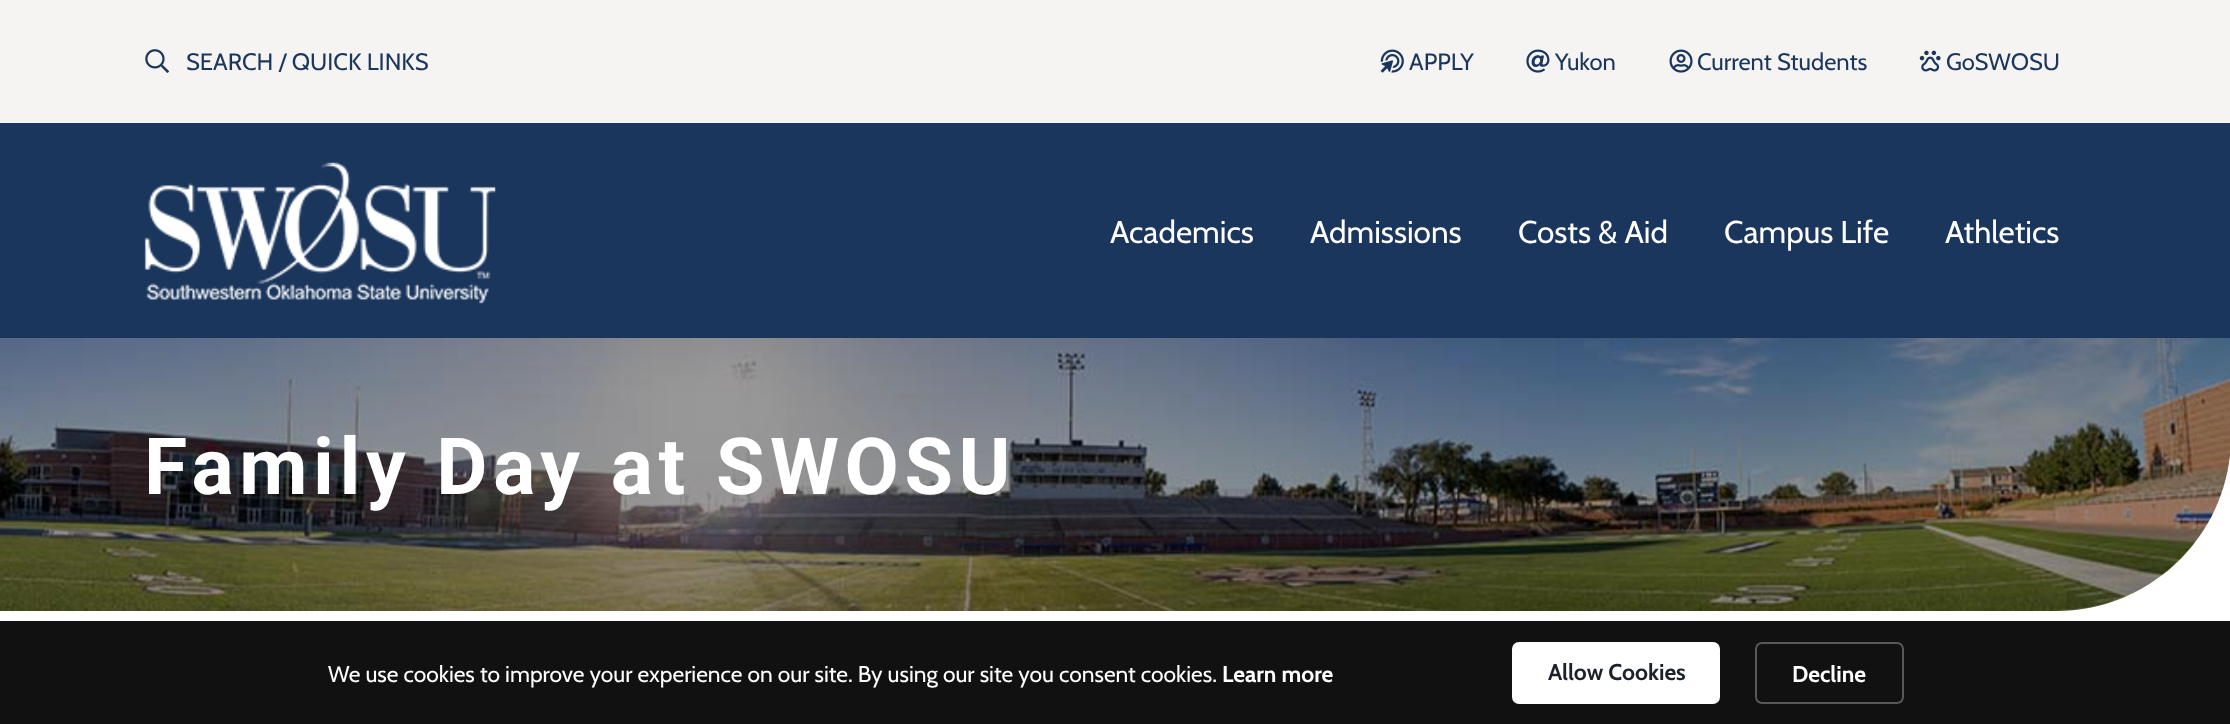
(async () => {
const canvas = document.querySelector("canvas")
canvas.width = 2230
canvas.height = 724
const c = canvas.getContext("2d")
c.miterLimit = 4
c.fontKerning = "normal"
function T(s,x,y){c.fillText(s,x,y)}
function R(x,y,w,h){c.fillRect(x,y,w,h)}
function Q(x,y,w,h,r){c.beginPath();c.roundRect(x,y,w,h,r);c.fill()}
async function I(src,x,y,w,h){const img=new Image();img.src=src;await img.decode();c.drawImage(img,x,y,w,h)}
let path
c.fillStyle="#fff"
R(0,0,2230,724)
c.fillStyle="#f5f4f3"
R(0,0,2230,123)
await I("1.png",145,49,24,24)
c.font="23.75px Cabin"
c.fillStyle="#1b365d"
T("SEARCH / QUICK LINKS",186,70)
await I("2.png",1380,49,24,24)
T("APPLY",1409,70)
await I("3.png",1526,49,24,24)
T("Yukon",1555,70)
await I("4.png",1669,49,24,24)
T("Current Students",1697,70)
await I("5.png",1919,50,22,22)
T("GoSWOSU",1946,70)
R(0,123,2230,215)
await I("6.png",144,162,352,142)
c.font="31.5px Cabin"
c.fillStyle="#fff"
T("Academics",1110,243)
T("Admissions",1310,243)
T("Costs & Aid",1518,243)
T("Campus Life",1724,243)
T("Athletics",1945,243)
await I("7.png",0,338,2230,273)
c.fillStyle="#00000066"
path = new Path2D("M0 338h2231v98c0 96.5-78.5 175-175 175h-2056z")
c.fill(path)
c.letterSpacing="5.6px"
c.font="bold 78.75px Roboto"
c.fillStyle="#fff"
T("Family Day at SWOSU",144,494)
c.fillStyle="#111"
R(0,621,2230,103)
c.letterSpacing="0px"
c.font="22.75px Cabin"
c.fillStyle="#fff"
T("We use cookies to improve your experience on our site. By using our site you consent cookies.",328,682)
c.font="bold 22.75px Cabin"
T("Learn more",1222,682)
Q(1512,642,208,62,7)
c.fillStyle="#1d2129"
T("Allow Cookies",1548,680)
c.beginPath()
c.roundRect(1756,643,147,60,6)
c.strokeStyle="#585858"
c.lineWidth=2
c.stroke()
c.fillStyle="#fff"
T("Decline",1792,682)
})()
